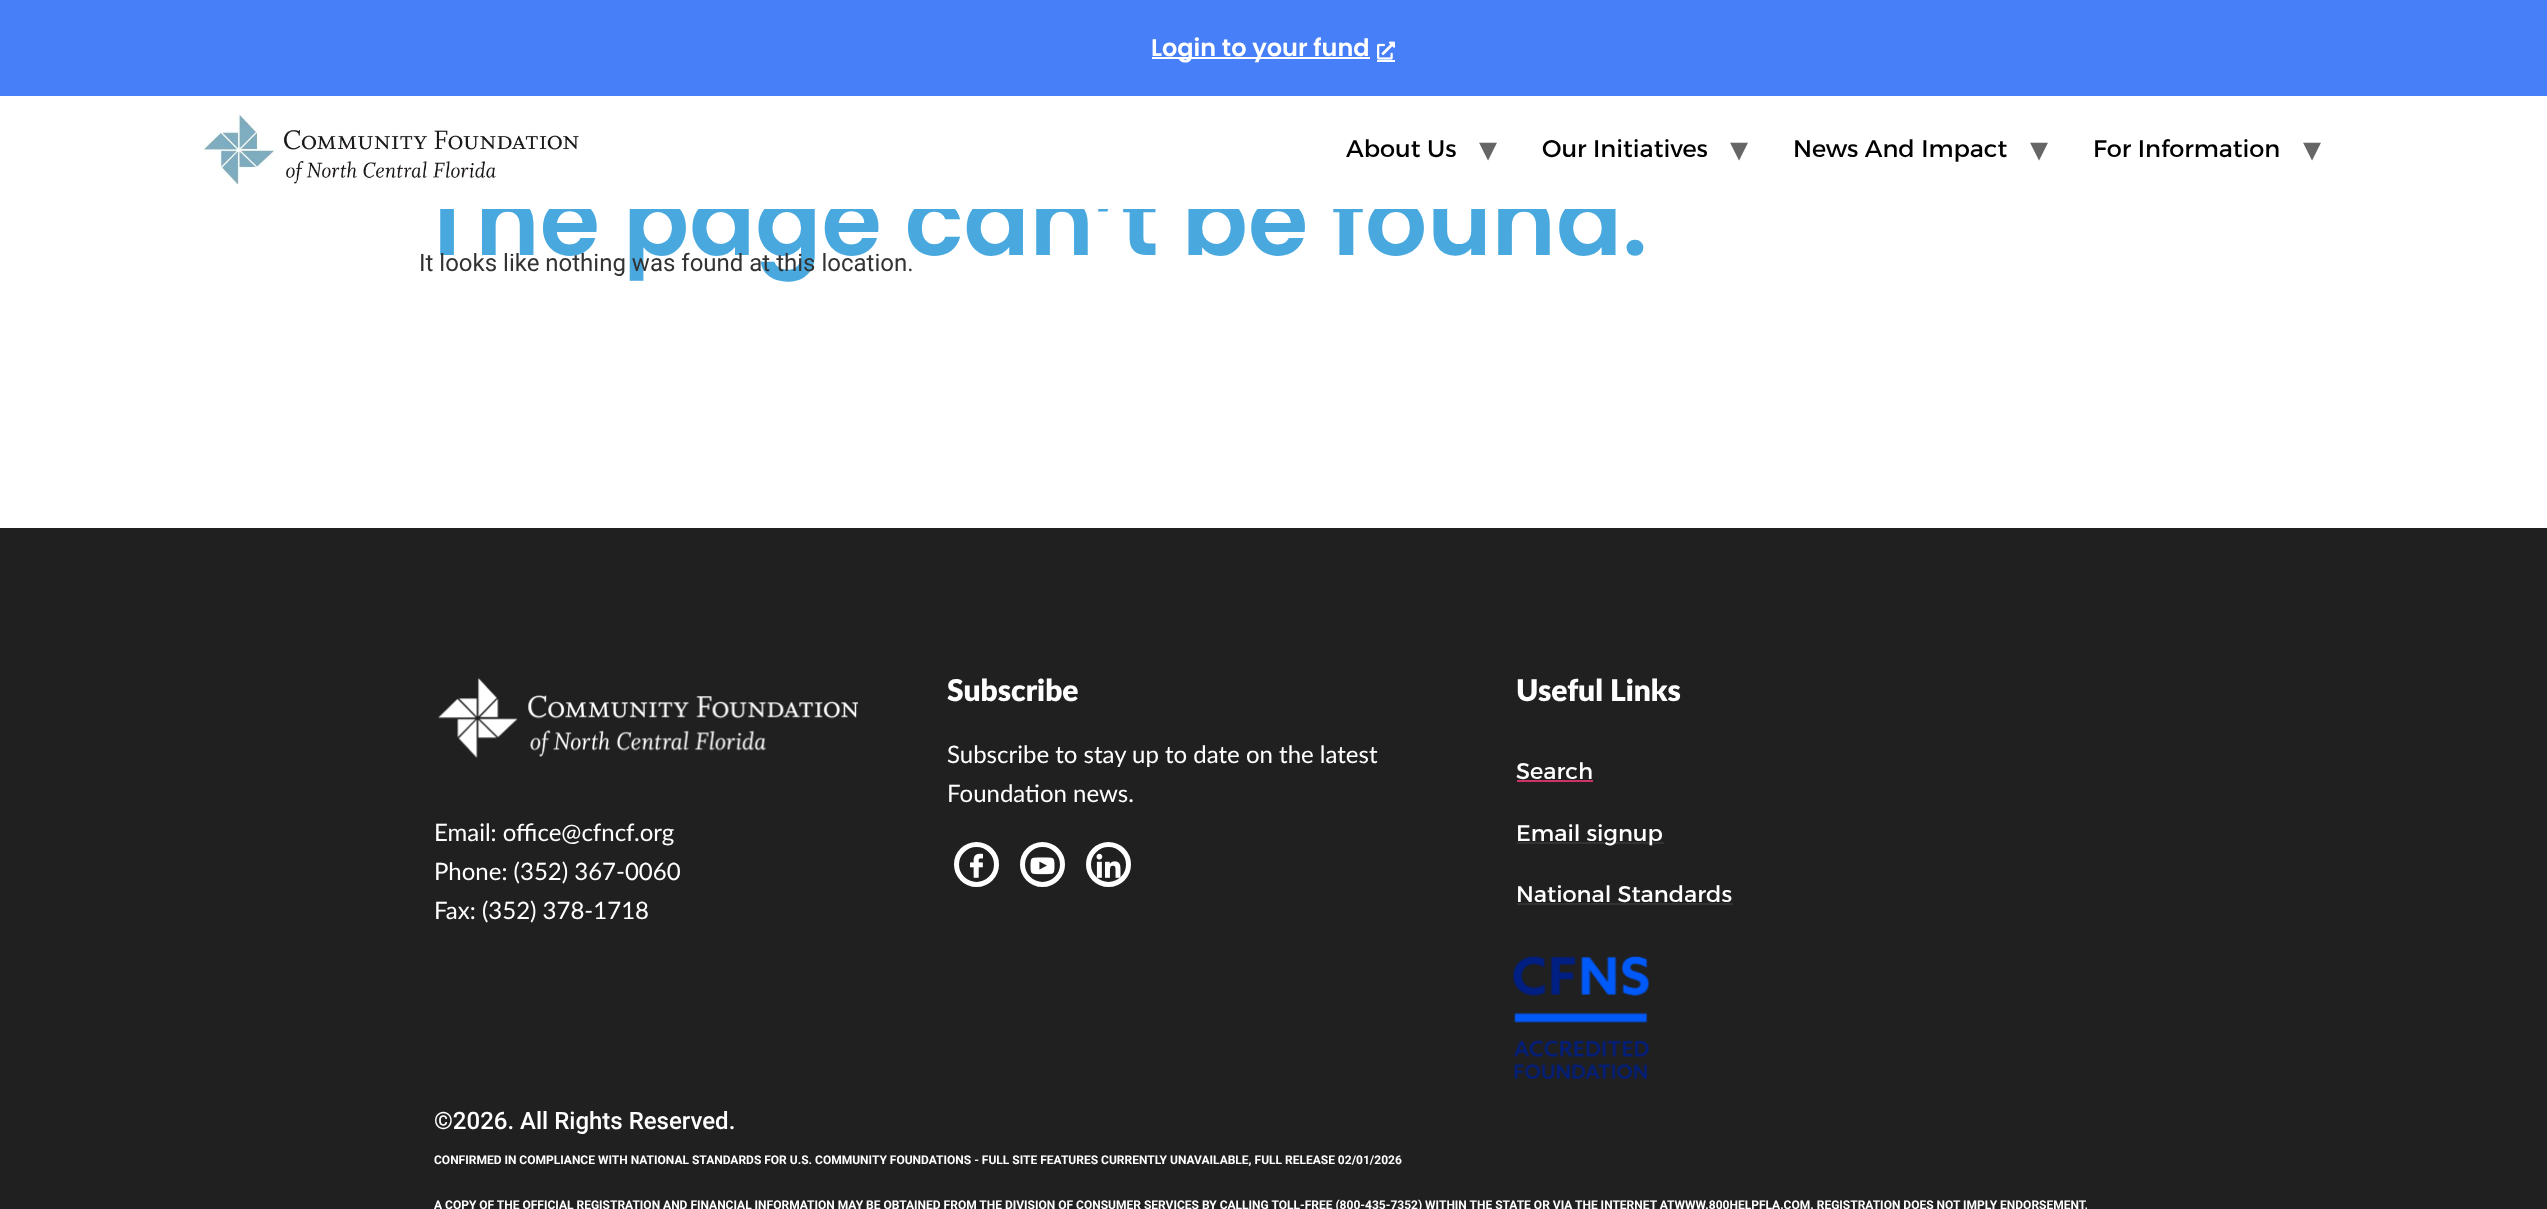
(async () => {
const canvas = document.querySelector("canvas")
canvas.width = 2547
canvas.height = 1209
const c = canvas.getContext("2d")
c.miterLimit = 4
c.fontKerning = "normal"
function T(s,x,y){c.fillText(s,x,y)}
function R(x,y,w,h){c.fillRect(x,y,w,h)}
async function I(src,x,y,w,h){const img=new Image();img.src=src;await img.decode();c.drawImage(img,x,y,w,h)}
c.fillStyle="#fff"
R(0,0,2547,1209)
c.fillStyle="#467ff7"
R(0,0,2547,96)
c.fillStyle="#fff"
R(1152,57,218,2)
c.font="600 24px Poppins"
T("Login to your fund",1151,56)
await I("1.png",1377,41,18,19)
R(1377,60,18,2)
c.font="600 97.5px Poppins"
c.fillStyle="#49a9df"
T("The page can’t be found.",419,255)
c.fillStyle="#fff"
R(421,179,1195,30)
await I("2.png",204,114,375,71)
c.font="24px Alexandria"
c.fillStyle="#000"
T("About Us",1346,157)
c.font="36px DejaVu Sans"
c.fillStyle="#666"
T("▾",1479,161)
c.font="24px Alexandria"
c.fillStyle="#000"
T("Our Initiatives",1542,157)
c.font="36px DejaVu Sans"
c.fillStyle="#666"
T("▾",1730,161)
c.font="24px Alexandria"
c.fillStyle="#000"
T("News And Impact",1793,157)
c.font="36px DejaVu Sans"
c.fillStyle="#666"
T("▾",2030,161)
c.font="24px Alexandria"
c.fillStyle="#000"
T("For Information",2093,157)
c.font="36px DejaVu Sans"
c.fillStyle="#666"
T("▾",2303,161)
c.font="24px Roboto"
c.fillStyle="#333"
T("It looks like nothing was found at this location.",419,271)
c.fillStyle="#202020"
R(0,528,2547,681)
await I("3.png",438,678,421,80)
c.font="24px Lato"
c.fillStyle="#fff"
T("Email: office@cfncf.org",434,841)
T("Phone: (352) 367-0060",434,880)
T("Fax: (352) 378-1718",434,919)
c.font="800 30px Lato"
T("Subscribe",947,701)
c.font="24px Lato"
T("Subscribe to stay up to date on the latest",947,763)
T("Foundation news.",947,802)
c.beginPath()
c.arc(976.5,864.5,20,0,7)
c.strokeStyle="#fff"
c.lineWidth=5
c.stroke()
await I("4.png",970,853,13,25)
c.beginPath()
c.arc(1042.5,864.5,20,0,7)
c.stroke()
await I("5.png",1030,857,25,18)
c.beginPath()
c.arc(1108.5,864.5,20,0,7)
c.stroke()
await I("6.png",1096,853,25,25)
c.font="800 30px Lato"
T("Useful Links",1516,701)
c.font="22.5px Alexandria"
T("Search",1516,779)
c.fillStyle="#c36"
R(1517,780,76,2)
c.fillStyle="#333"
R(1517,842,147,2)
c.fillStyle="#fff"
T("Email signup",1516,841)
T("National Standards",1516,902)
c.fillStyle="#333"
R(1517,903,216,2)
await I("7.png",1513,956,136,123)
c.font="500 24px Roboto"
c.fillStyle="#fff"
T("©2026. All Rights Reserved.",434,1129)
c.font="bold 12px Roboto"
T("CONFIRMED IN COMPLIANCE WITH NATIONAL STANDARDS FOR U.S. COMMUNITY FOUNDATIONS - FULL SITE FEATURES CURRENTLY UNAVAILABLE, FULL RELEASE 02/01/2026",434,1164)
T("A COPY OF THE OFFICIAL REGISTRATION AND FINANCIAL INFORMATION MAY BE OBTAINED FROM THE DIVISION OF CONSUMER SERVICES BY CALLING TOLL-FREE (800-435-7352) WITHIN THE STATE OR VIA THE INTERNET ATWWW.800HELPFLA.COM. REGISTRATION DOES NOT IMPLY ENDORSEMENT,",434,1209)
})()
